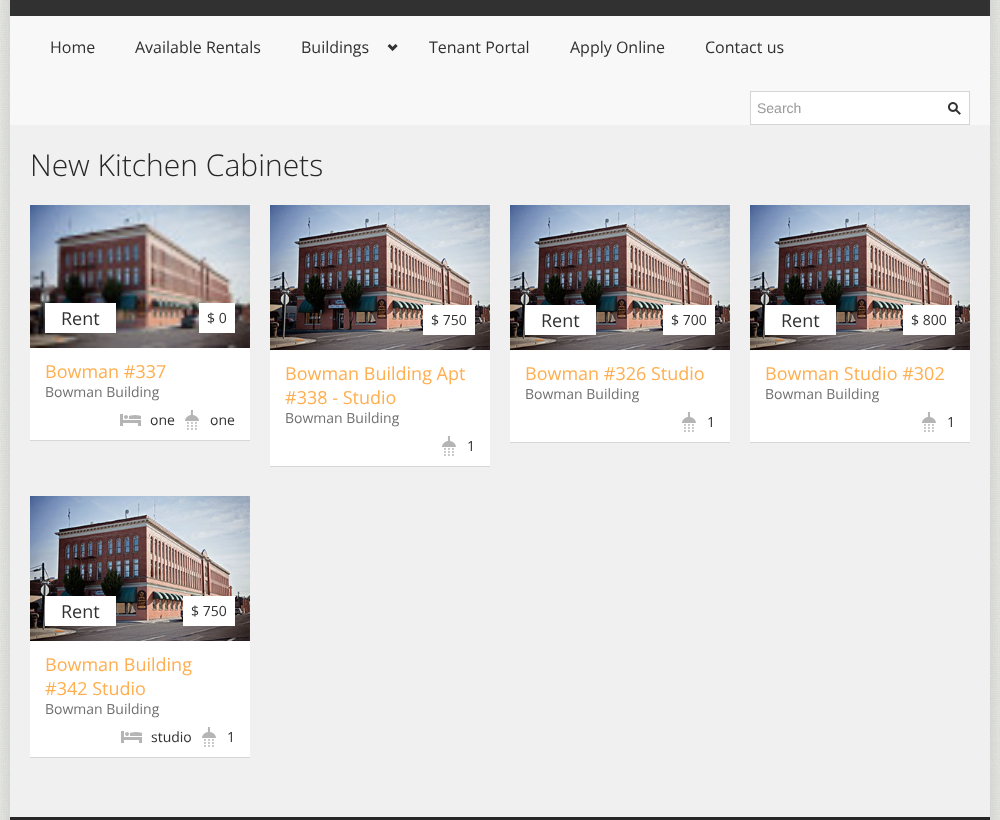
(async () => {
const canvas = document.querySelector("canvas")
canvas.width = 1000
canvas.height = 820
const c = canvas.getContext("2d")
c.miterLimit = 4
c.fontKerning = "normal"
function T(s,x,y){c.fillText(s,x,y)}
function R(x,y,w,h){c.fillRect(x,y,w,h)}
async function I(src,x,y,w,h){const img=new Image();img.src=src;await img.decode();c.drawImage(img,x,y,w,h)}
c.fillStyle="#fff"
R(0,0,1000,820)
await I("1.png",0,0,1000,820)
c.fillStyle="#0000001c"
c.filter="blur(7px)"
c.beginPath()
c.rect(10,-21,980,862)
c.fill()
c.filter="none"
c.fillStyle="#f0f0f0"
R(10,125,980,692)
c.fillStyle="#313131"
R(10,0,980,16)
c.fillStyle="#f8f8f8"
R(10,16,980,109)
c.font="16px Open Sans"
c.fillStyle="#313131"
T("Home",50,53)
T("Available Rentals",135,53)
await I("2.png",387,44,11,7)
T("Buildings",301,53)
T("Tenant Portal",429,53)
T("Apply Online",570,53)
T("Contact us",705,53)
c.fillStyle="#fff"
R(751,92,218,32)
await I("3.png",948,102,13,13)
c.fillStyle="#d5d5d5"
R(750,91,220,1)
R(969,91,1,34)
R(750,124,220,1)
R(750,91,1,34)
c.font="14px Liberation Sans"
c.fillStyle="#999"
T("Search",757,113)
c.font="300 30px Open Sans"
c.fillStyle="#272727"
T("New Kitchen Cabinets",30,176)
c.fillStyle="#0000001a"
c.filter="blur(0.5px)"
c.beginPath()
c.rect(30,206,220,235)
c.fill()
c.filter="none"
c.fillStyle="#fff"
R(30,348,220,92)
await I("4.png",30,205,220,143)
R(45,303,71,30)
c.font="18px Open Sans"
c.fillStyle="#313131"
T("Rent",61,325)
c.fillStyle="#fff"
R(199,303,36,30)
c.font="14px Open Sans"
c.fillStyle="#313131"
T("$ 0",207,323)
c.font="18px Open Sans"
c.fillStyle="#ffaf50"
T("Bowman #337",45,378)
c.font="14px Open Sans"
c.fillStyle="#707070"
T("Bowman Building",45,397)
await I("5.png",120,414,21,12)
c.fillStyle="#313131"
T("one",150,425)
await I("6.png",185,410,14,20)
T("one",210,425)
c.fillStyle="#0000001a"
c.filter="blur(0.5px)"
c.beginPath()
c.rect(270,206,220,261)
c.fill()
c.filter="none"
c.fillStyle="#fff"
R(270,350,220,116)
await I("7.png",270,205,220,145)
R(423,305,52,30)
c.fillStyle="#313131"
T("$ 750",431,325)
c.font="18px Open Sans"
c.fillStyle="#ffaf50"
T("Bowman Building Apt",285,380)
T("#338 - Studio",285,404)
c.font="14px Open Sans"
c.fillStyle="#707070"
T("Bowman Building",285,423)
await I("6.png",442,436,14,20)
c.fillStyle="#313131"
T("1",467,451)
c.fillStyle="#0000001a"
c.filter="blur(0.5px)"
c.beginPath()
c.rect(510,206,220,237)
c.fill()
c.filter="none"
c.fillStyle="#fff"
R(510,350,220,92)
await I("8.png",510,205,220,145)
R(525,305,71,30)
c.font="18px Open Sans"
c.fillStyle="#313131"
T("Rent",541,327)
c.fillStyle="#fff"
R(663,305,52,30)
c.font="14px Open Sans"
c.fillStyle="#313131"
T("$ 700",671,325)
c.font="18px Open Sans"
c.fillStyle="#ffaf50"
T("Bowman #326 Studio",525,380)
c.font="14px Open Sans"
c.fillStyle="#707070"
T("Bowman Building",525,399)
await I("6.png",682,412,14,20)
c.fillStyle="#313131"
T("1",707,427)
c.fillStyle="#0000001a"
c.filter="blur(0.5px)"
c.beginPath()
c.rect(750,206,220,237)
c.fill()
c.filter="none"
c.fillStyle="#fff"
R(750,350,220,92)
await I("9.png",750,205,220,145)
R(765,305,71,30)
c.font="18px Open Sans"
c.fillStyle="#313131"
T("Rent",781,327)
c.fillStyle="#fff"
R(903,305,52,30)
c.font="14px Open Sans"
c.fillStyle="#313131"
T("$ 800",911,325)
c.font="18px Open Sans"
c.fillStyle="#ffaf50"
T("Bowman Studio #302",765,380)
c.font="14px Open Sans"
c.fillStyle="#707070"
T("Bowman Building",765,399)
await I("6.png",922,412,14,20)
c.fillStyle="#313131"
T("1",947,427)
c.fillStyle="#0000001a"
c.filter="blur(0.5px)"
c.beginPath()
c.rect(30,497,220,261)
c.fill()
c.filter="none"
c.fillStyle="#fff"
R(30,641,220,116)
await I("10.png",30,496,220,145)
R(45,596,71,30)
c.font="18px Open Sans"
c.fillStyle="#313131"
T("Rent",61,618)
c.fillStyle="#fff"
R(183,596,52,30)
c.font="14px Open Sans"
c.fillStyle="#313131"
T("$ 750",191,616)
c.font="18px Open Sans"
c.fillStyle="#ffaf50"
T("Bowman Building",45,671)
T("#342 Studio",45,695)
c.font="14px Open Sans"
c.fillStyle="#707070"
T("Bowman Building",45,714)
await I("5.png",121,731,21,12)
c.fillStyle="#313131"
T("studio",151,742)
await I("6.png",202,727,14,20)
T("1",227,742)
c.fillStyle="#272727"
R(10,817,980,3)
})()
